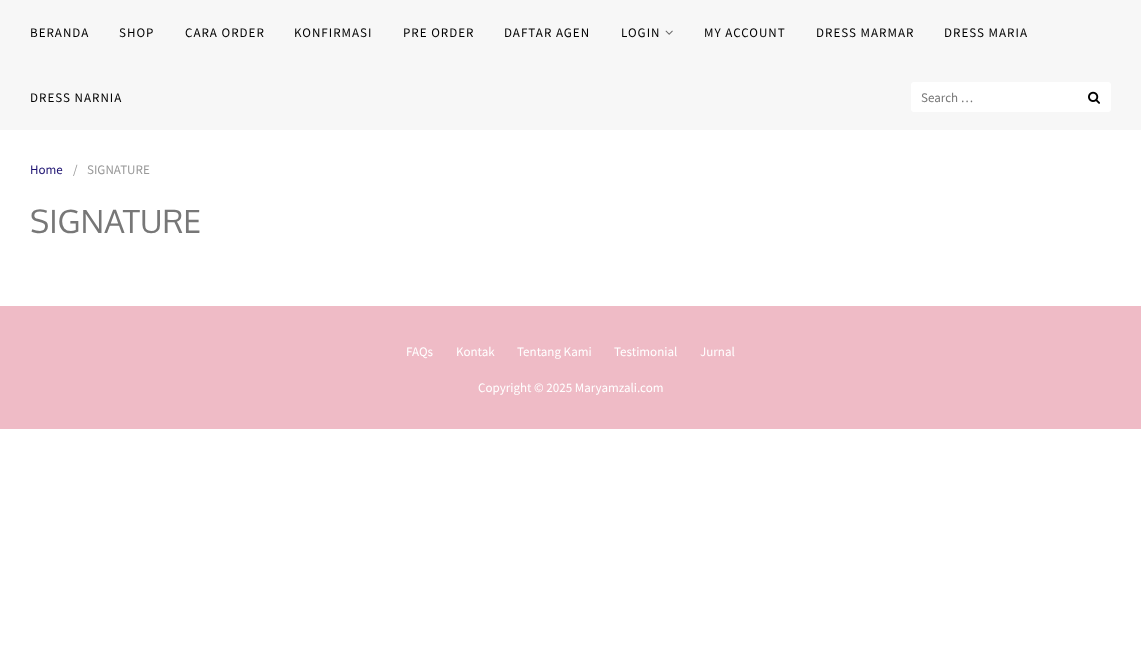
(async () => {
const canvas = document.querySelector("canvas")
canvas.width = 1141
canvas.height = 664
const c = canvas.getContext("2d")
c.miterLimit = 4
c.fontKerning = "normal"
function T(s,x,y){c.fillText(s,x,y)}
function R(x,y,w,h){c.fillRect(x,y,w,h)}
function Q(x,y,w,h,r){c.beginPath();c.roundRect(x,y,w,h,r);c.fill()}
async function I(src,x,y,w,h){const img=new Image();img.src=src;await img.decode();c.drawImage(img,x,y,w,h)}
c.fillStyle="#fff"
R(0,0,1141,664)
c.fillStyle="#f7f7f7"
R(0,0,1141,130)
c.letterSpacing="1px"
c.font="13px Source Sans Pro"
c.fillStyle="#000"
T("BERANDA",30,37)
T("SHOP",119,37)
T("CARA ORDER",185,37)
T("KONFIRMASI",294,37)
T("PRE ORDER",403,37)
T("DAFTAR AGEN",504,37)
T("LOGIN",621,37)
await I("1.png",665,30,8,5)
T("MY ACCOUNT",704,37)
T("DRESS MARMAR",816,37)
T("DRESS MARIA",944,37)
T("DRESS NARNIA",30,102)
c.fillStyle="#fff"
Q(911,82,200,30,3)
c.letterSpacing="0px"
c.fillStyle="#777"
T("Search …",921,102)
await I("2.png",1088,91,12,13)
c.fillStyle="#1c1170"
T("Home",30,174)
c.fillStyle="#999"
T("/",73,174)
T("SIGNATURE",87,174)
c.font="32px Oxygen"
c.fillStyle="#777"
T("SIGNATURE",30,233)
c.fillStyle="#efbbc6"
R(0,306,1141,123)
c.font="13px Source Sans Pro"
c.fillStyle="#fff"
T("FAQs",406,356)
T("Kontak",456,356)
T("Tentang Kami",517,356)
T("Testimonial",614,356)
T("Jurnal",700,356)
T("Copyright © 2025 Maryamzali.com",478,392)
})()
